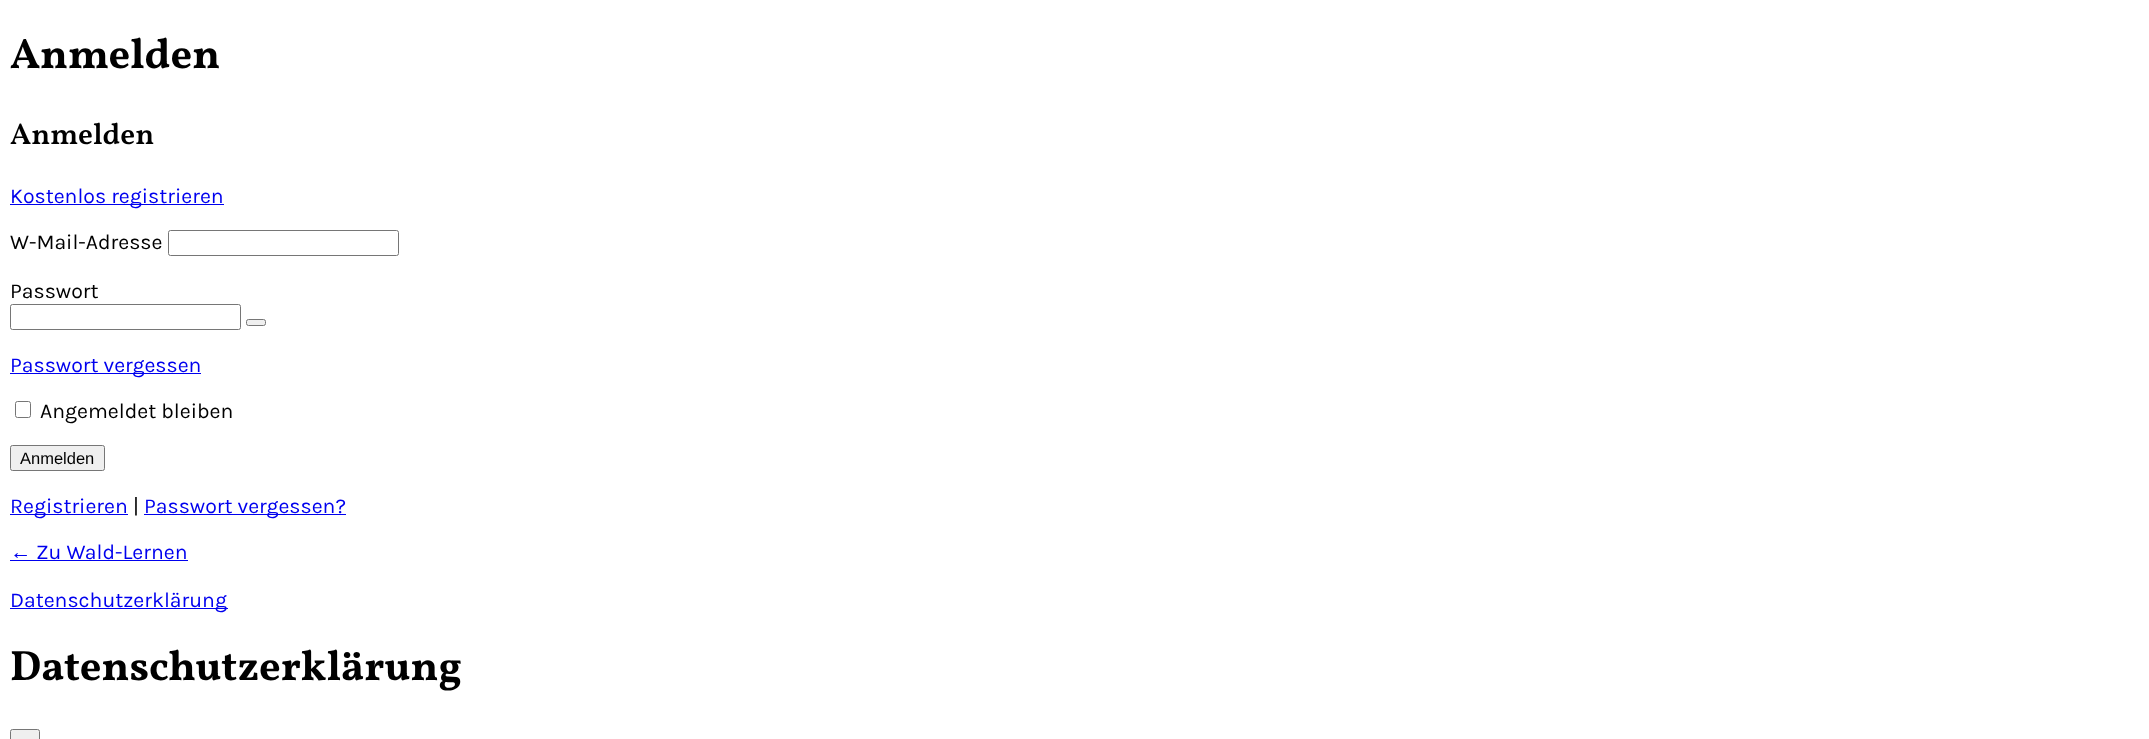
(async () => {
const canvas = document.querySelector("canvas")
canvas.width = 2149
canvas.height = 739
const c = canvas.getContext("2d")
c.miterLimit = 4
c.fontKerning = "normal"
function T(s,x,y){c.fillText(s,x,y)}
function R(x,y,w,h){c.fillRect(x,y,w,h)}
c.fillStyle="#fff"
R(0,0,2149,739)
c.font="bold 42.5px Vollkorn"
c.fillStyle="#000"
T("Anmelden",10,68)
c.font="600 30px Vollkorn"
T("Anmelden",10,144)
c.fillStyle="#00e"
R(10,204,214,1)
c.font="21.25px Karla"
T("Kostenlos registrieren",10,203)
c.fillStyle="#000"
T("W-Mail-Adresse",10,249)
c.beginPath()
c.roundRect(168.5,230.5,230,25,2)
c.strokeStyle="#767676"
c.stroke()
T("Passwort",10,298)
c.beginPath()
c.roundRect(10.5,304.5,230,25,2)
c.stroke()
c.fillStyle="#efefef"
c.beginPath()
c.roundRect(246.5,319.5,19,6,2)
c.fill()
c.stroke()
c.fillStyle="#00e"
R(10,373,191,1)
T("Passwort vergessen",10,372)
c.beginPath()
c.roundRect(15.5,401.5,15,16,2)
c.stroke()
c.fillStyle="#000"
T("Angemeldet bleiben",40,418)
c.fillStyle="#efefef"
c.beginPath()
c.roundRect(10.5,445.5,94,25,2)
c.fill()
c.stroke()
c.font="16.5px Liberation Sans"
c.fillStyle="#000"
T("Anmelden",20,464)
c.fillStyle="#00e"
R(10,514,118,1)
c.font="21.25px Karla"
T("Registrieren",10,513)
c.fillStyle="#000"
T("|",133,513)
c.fillStyle="#00e"
R(144,514,202,1)
T("Passwort vergessen?",144,513)
c.font="21.25px Liberation Serif"
T("←",10,559)
R(10,560,178,1)
c.font="21.25px Karla"
T("Zu Wald-Lernen",36,559)
R(10,608,218,1)
T("Datenschutzerklärung",10,607)
c.font="bold 42.5px Vollkorn"
c.fillStyle="#000"
T("Datenschutzerklärung",10,680)
c.fillStyle="#efefef"
c.beginPath()
c.roundRect(10.5,729.5,29,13,2)
c.fill()
c.stroke()
})()
